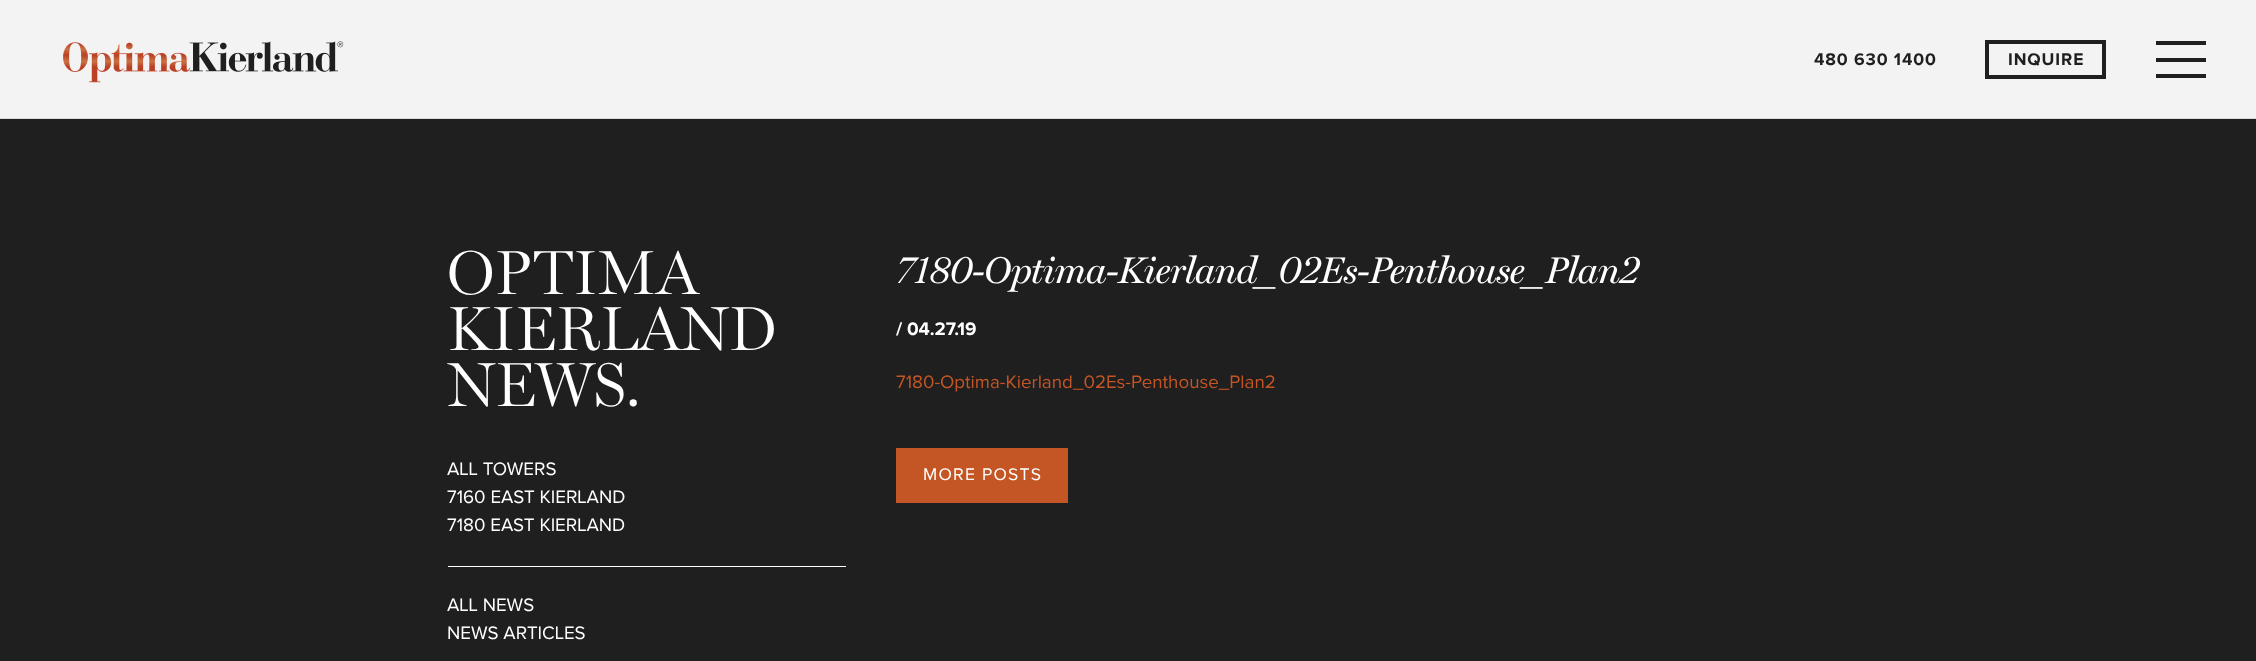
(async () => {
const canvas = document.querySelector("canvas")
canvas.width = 2256
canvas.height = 661
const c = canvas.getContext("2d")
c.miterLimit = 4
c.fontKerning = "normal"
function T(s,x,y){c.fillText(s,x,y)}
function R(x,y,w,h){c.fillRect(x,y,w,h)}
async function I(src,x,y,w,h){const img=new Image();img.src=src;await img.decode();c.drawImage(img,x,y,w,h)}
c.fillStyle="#1f1f1f"
R(0,0,2256,661)
c.fillStyle="#f3f3f3"
R(0,0,2256,118)
c.fillStyle="#dadada"
R(0,118,2256,1)
await I("1.png",63,41,281,42)
c.letterSpacing="0.9px"
c.font="bold 17.5px Proxima Nova"
c.fillStyle="#1f1f1f"
T("480 630 1400",1814,65)
c.strokeStyle="#1f1f1f"
c.lineWidth=4
c.strokeRect(1987,42,117,35)
T("INQUIRE",2008,65)
R(2156,41,50,4)
R(2156,58,50,4)
R(2156,74,50,4)
c.letterSpacing="0px"
c.font="300 62.5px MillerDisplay"
c.fillStyle="#fff"
T("OPTIMA",447,294)
T("KIERLAND",447,350)
T("NEWS.",447,406)
R(448,566,398,1)
c.font="18.75px Proxima Nova"
T("ALL TOWERS",447,475)
T("7160 EAST KIERLAND",447,503)
T("7180 EAST KIERLAND",447,531)
T("ALL NEWS",447,611)
T("NEWS ARTICLES",447,639)
c.font="italic 37.5px MillerDisplay"
T("7180-Optima-Kierland_02Es-Penthouse_Plan2",896,283)
c.font="bold 18.75px Proxima Nova"
T("/ 04.27.19",896,335)
c.font="18.75px Proxima Nova"
c.fillStyle="#c45625"
T("7180-Optima-Kierland_02Es-Penthouse_Plan2",896,388)
R(896,448,172,55)
c.letterSpacing="1.25px"
c.font="17.5px Proxima Nova"
c.fillStyle="#fff"
T("MORE POSTS",923,480)
})()
